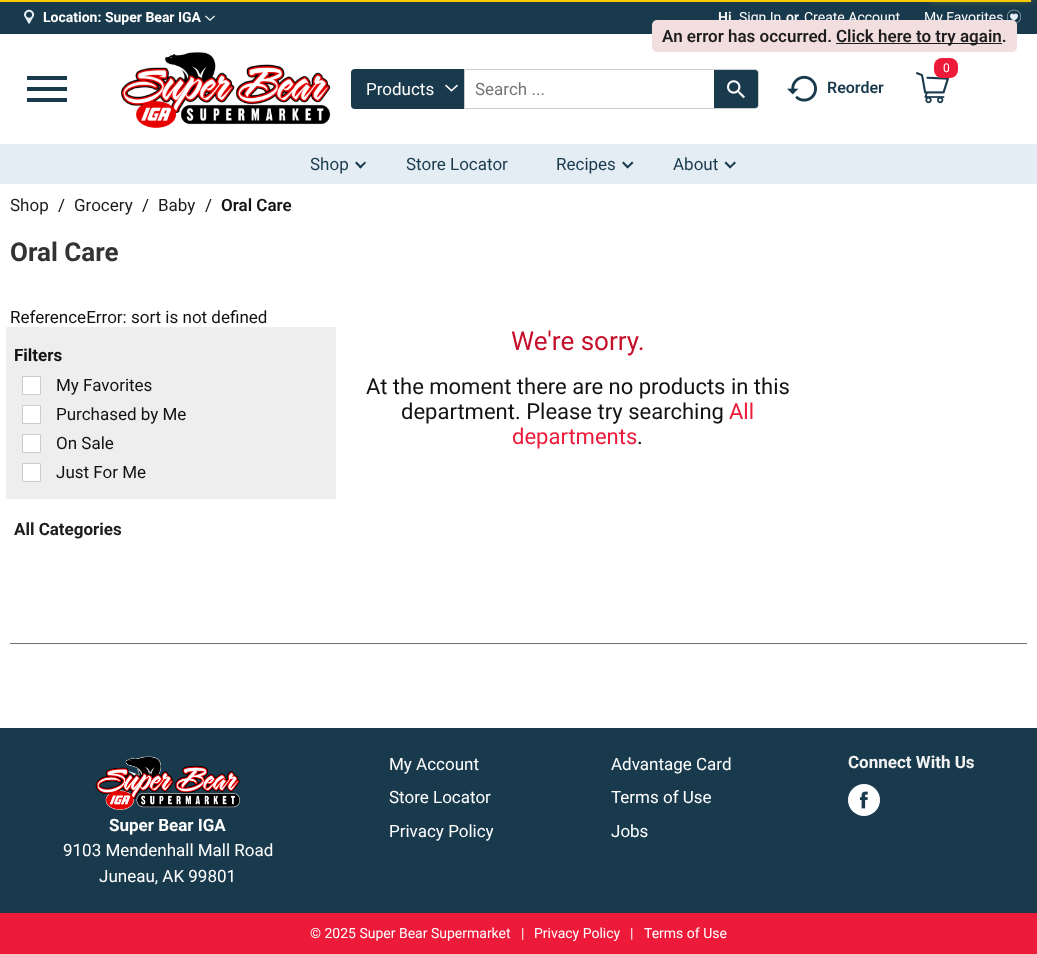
(async () => {
const canvas = document.querySelector("canvas")
canvas.width = 1037
canvas.height = 954
const c = canvas.getContext("2d")
c.miterLimit = 4
c.fontKerning = "normal"
function T(s,x,y){c.fillText(s,x,y)}
function R(x,y,w,h){c.fillRect(x,y,w,h)}
function Q(x,y,w,h,r){c.beginPath();c.roundRect(x,y,w,h,r);c.fill()}
async function I(src,x,y,w,h){const img=new Image();img.src=src;await img.decode();c.drawImage(img,x,y,w,h)}
let path
c.fillStyle="#fff"
R(0,0,1037,954)
c.fillStyle="#193a4d"
R(0,0,1037,34)
await I("1.png",24,9,11,15)
c.font="bold 14px Roboto"
c.fillStyle="#fff"
T("Location: Super Bear IGA",43,22)
await I("2.png",205,15,10,6)
c.font="600 14px Roboto"
T("Hi",718,22)
c.font="14px Roboto"
T("Sign In",739,22)
c.font="600 14px Roboto"
T("or",786,22)
c.font="14px Roboto"
T("Create Account",804,22)
T("My Favorites",924,22)
await I("3.png",1007,9,14,15)
await I("4.png",121,52,210,76)
await I("5.png",916,72,33,32)
c.fillStyle="#ed1a39"
Q(934,58,24,20,8)
c.font="12px Roboto"
c.fillStyle="#fff"
T("0",943,72)
c.fillStyle="#193a4d"
R(27,87,40,4)
R(27,76,40,4)
R(27,98,40,4)
c.beginPath()
c.roundRect(351,69,113,40,[4,0,0,4])
c.fill()
c.font="17px Roboto"
c.fillStyle="#fff"
T("Products",366,95)
await I("6.png",445,84,13,8)
c.beginPath()
c.roundRect(464.5,69.5,294,39,[0,3.5,3.5,0])
c.strokeStyle="#ccc"
c.stroke()
c.fillStyle="#757575"
T("Search ...",475,95)
c.fillStyle="#193a4d"
c.beginPath()
c.roundRect(714,70,44,38,[0,3,3,0])
c.fill()
await I("7.png",727,80,18,19)
await I("8.png",787,75,30,27)
c.font="600 16px Roboto"
T("Reorder",827,93)
c.fillStyle="#e4edf4"
R(0,144,1037,40)
c.font="17px Roboto"
c.fillStyle="#193a4d"
T("Shop",310,170)
path = new Path2D("M366 163l-5.5 5.5l-1.5-1.5l6-5.5z")
c.fill(path)
path = new Path2D("M362 167l-1.5 1.5l-5.5-5.5l1.5-1.5z")
c.fill(path)
T("Store Locator",406,170)
T("Recipes",556,170)
path = new Path2D("M633.5 163l-6 5.5l-1-1.5l5.5-5.5z")
c.fill(path)
path = new Path2D("M629 167l-1.5 1.5l-5.5-5.5l1.5-1.5z")
c.fill(path)
T("About",673,170)
path = new Path2D("M736 163l-6 5.5l-1-1.5l5.5-5.5z")
c.fill(path)
path = new Path2D("M731.5 167l-1.5 1.5l-5.5-5.5l1.5-1.5z")
c.fill(path)
c.fillStyle="#1d1d1f"
T("Shop",10,211)
c.fillStyle="#121212"
T("/",58,211)
c.fillStyle="#1d1d1f"
T("Grocery",74,211)
c.fillStyle="#121212"
T("/",142,211)
c.fillStyle="#1d1d1f"
T("Baby",158,211)
c.fillStyle="#121212"
T("/",205,211)
c.font="600 17px Roboto"
T("Oral Care",221,211)
c.font="bold 26px Roboto"
c.fillStyle="#333"
T("Oral Care",10,261)
c.font="17px Roboto"
c.fillStyle="#121212"
T("ReferenceError: sort is not defined",10,323)
c.fillStyle="#eee"
R(6,327,330,172)
c.font="bold 17px Roboto"
c.fillStyle="#121212"
T("Filters",14,361)
c.fillStyle="#fff"
c.beginPath()
c.rect(22.5,376.5,18,18)
c.fill()
c.stroke()
c.font="17px Roboto"
c.fillStyle="#121212"
T("My Favorites",56,391)
c.fillStyle="#fff"
c.beginPath()
c.rect(22.5,405.5,18,18)
c.fill()
c.stroke()
c.fillStyle="#121212"
T("Purchased by Me",56,420)
c.fillStyle="#fff"
c.beginPath()
c.rect(22.5,434.5,18,18)
c.fill()
c.stroke()
c.fillStyle="#121212"
T("On Sale",56,449)
c.fillStyle="#fff"
c.beginPath()
c.rect(22.5,463.5,18,18)
c.fill()
c.stroke()
c.fillStyle="#121212"
T("Just For Me",56,478)
c.font="bold 17px Roboto"
c.fillStyle="#1d1d1f"
T("All Categories",14,535)
c.font="26px Roboto"
c.fillStyle="#c50f2a"
T("We're sorry.",511,350)
c.font="22px Roboto"
c.fillStyle="#121212"
T("At the moment there are no products in this",366,394)
T("department. Please try searching",401,419)
c.fillStyle="#ed1a39"
T("All",729,419)
T("departments",512,444)
c.fillStyle="#121212"
T(".",637,444)
c.fillStyle="#707070"
R(10,643,1017,1)
c.fillStyle="#193a4d"
R(0,728,1037,185)
c.font="17px Roboto"
c.fillStyle="#fff"
T("My Account",389,770)
T("Store Locator",389,803)
T("Privacy Policy",389,837)
T("Advantage Card",611,770)
T("Terms of Use",611,803)
T("Jobs",611,837)
c.font="bold 17px Roboto"
c.fillStyle="#f2f2f2"
T("Connect With Us",848,768)
c.fillStyle="#fff"
c.beginPath()
c.arc(864,800,16,0,7)
c.fill()
await I("9.png",860,791,8,18)
await I("10.png",95,756,146,54)
T("Super Bear IGA",109,831)
c.font="17px Roboto"
T("9103 Mendenhall Mall Road",63,856)
T("Juneau, AK 99801",99,882)
c.fillStyle="#ed1a39"
R(0,913,1037,41)
c.font="14px Roboto"
c.fillStyle="#fff"
T("© 2025 Super Bear Supermarket",310,938)
c.fillStyle="#f2f2f2"
T("|",521,938)
c.fillStyle="#fff"
T("Privacy Policy",534,938)
c.fillStyle="#f2f2f2"
T("|",630,938)
c.fillStyle="#fff"
T("Terms of Use",644,938)
c.fillStyle="#fac901"
R(0,0,1031,2)
c.filter="blur(2.5px)"
c.beginPath()
c.rect(931,-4,100,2)
c.fill()
c.filter="none"
c.filter="blur(5px)"
c.beginPath()
c.rect(931,-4,100,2)
c.fill()
c.filter="none"
c.fillStyle="#f2dede"
Q(652,20,365,32,5)
c.font="600 17px Roboto"
c.fillStyle="#1d1d1f"
T("An error has occurred.",662,42)
R(836,43,166,1)
T("Click here to try again.",836,42)
})()
